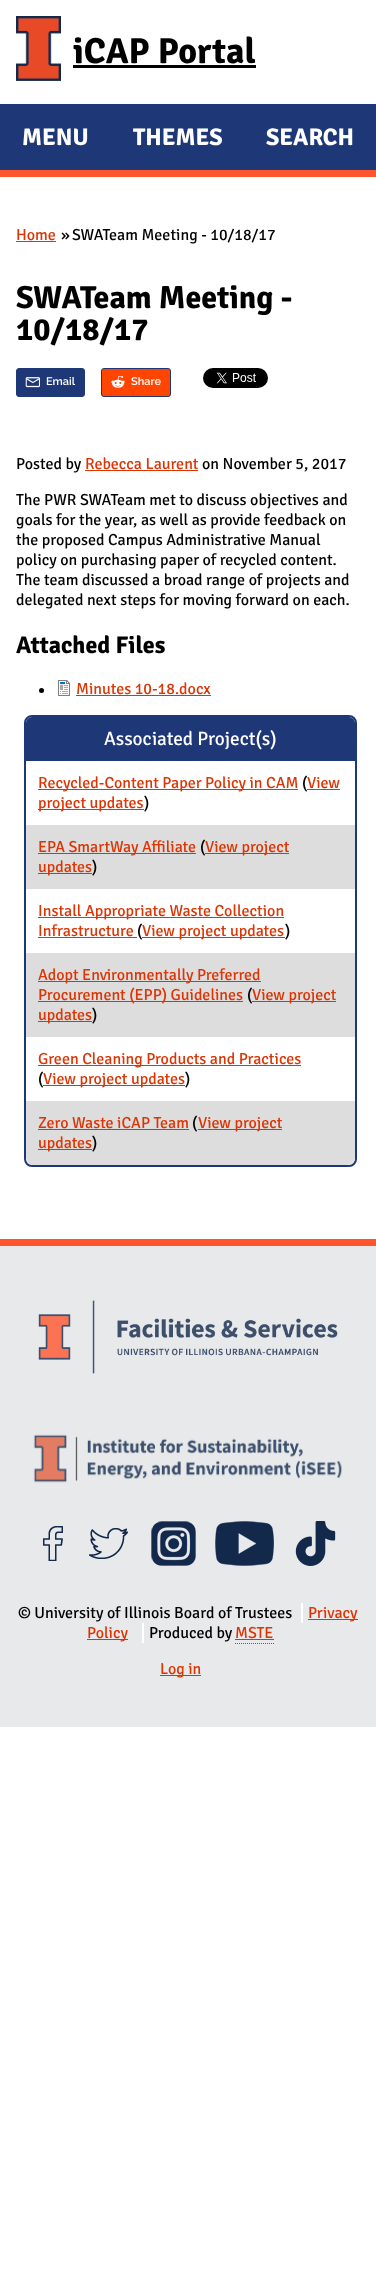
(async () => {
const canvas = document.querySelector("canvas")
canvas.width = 376
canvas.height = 2280
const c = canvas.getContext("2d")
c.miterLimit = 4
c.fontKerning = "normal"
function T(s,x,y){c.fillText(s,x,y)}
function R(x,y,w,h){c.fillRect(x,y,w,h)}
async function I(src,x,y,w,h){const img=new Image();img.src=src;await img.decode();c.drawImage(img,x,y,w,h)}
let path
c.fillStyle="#fff"
R(0,0,376,2280)
await I("1.png",16,16,45,65)
c.font="bold 36px Signika"
c.fillStyle="#000"
T("iCAP Portal",73,63)
R(73,65,183,3)
c.fillStyle="#ff552e"
R(0,170,376,7)
c.fillStyle="#1e3877"
R(0,104,376,66)
c.font="bold 24px Signika"
c.fillStyle="#fff"
T("MENU",22,145)
T("THEMES",133,145)
T("SEARCH",266,145)
c.font="16px Signika"
c.fillStyle="#dd3403"
T("Home",16,240)
R(16,241,40,1)
c.fillStyle="#000"
T("»",61,240)
T("SWATeam Meeting - 10/18/17",72,240)
c.font="bold 32px Signika"
T("SWATeam Meeting -",16,308)
T("10/18/17",16,340)
c.fillStyle="#1e3877"
c.beginPath()
c.roundRect(16.5,368.5,68,28,2.5)
c.fill()
c.strokeStyle="#1e3877"
c.stroke()
await I("2.png",25,377,15,11)
c.font="600 11px Raleway"
c.fillStyle="#fff"
T("Email",46,385)
c.fillStyle="#ff4500"
c.beginPath()
c.roundRect(101.5,368.5,69,28,2.5)
c.fill()
c.stroke()
await I("3.png",111,376,14,12)
c.fillStyle="#fff"
T("Share",131,385)
await I("4.png",203,368,65,20)
c.font="16px Signika"
c.fillStyle="#000"
T("Posted by",16,469)
c.fillStyle="#dd3403"
T("Rebecca Laurent",85,469)
R(85,470,113,1)
c.fillStyle="#000"
T("on November 5, 2017",202,469)
T("The PWR SWATeam met to discuss objectives and",16,505)
T("goals for the year, as well as provide feedback on",16,525)
T("the proposed Campus Administrative Manual",16,545)
T("policy on purchasing paper of recycled content.",16,565)
T("The team discussed a broad range of projects and",16,585)
T("delegated next steps for moving forward on each.",16,605)
c.font="bold 24px Signika"
T("Attached Files",16,653)
c.beginPath()
c.arc(41.5,690.5,2.5,0,7)
c.fill()
await I("5.png",58,680,12,16)
c.font="16px Signika"
c.fillStyle="#dd3403"
T("Minutes 10-18.docx",76,694)
R(76,695,135,1)
c.beginPath()
c.roundRect(25,716,331,450,7)
c.lineWidth=2
c.stroke()
c.fillStyle="#1e3877"
c.beginPath()
c.roundRect(26,717,329,44,[6,6,0,0])
c.fill()
c.font="19.25px Signika"
c.fillStyle="#fff"
T("Associated Project(s)",104,745)
c.fillStyle="#dd3403"
R(38,789,260,1)
c.font="16px Signika"
T("Recycled-Content Paper Policy in CAM",38,788)
c.fillStyle="#000"
T("(",302,788)
c.fillStyle="#dd3403"
R(307,789,33,1)
T("View",307,788)
R(38,809,106,1)
T("project updates",38,808)
c.fillStyle="#000"
T(")",144,808)
c.fillStyle="#ddd"
R(26,825,329,64)
c.fillStyle="#dd3403"
R(38,853,158,1)
T("EPA SmartWay Affiliate",38,852)
c.fillStyle="#000"
T("(",200,852)
c.fillStyle="#dd3403"
R(205,853,84,1)
T("View project",205,852)
R(38,873,54,1)
T("updates",38,872)
c.fillStyle="#000"
T(")",92,872)
c.fillStyle="#dd3403"
R(38,917,246,1)
T("Install Appropriate Waste Collection",38,916)
T("Infrastructure",38,936)
R(38,937,99,1)
c.fillStyle="#000"
T("(",137,936)
c.fillStyle="#dd3403"
R(142,937,143,1)
T("View project updates",142,936)
c.fillStyle="#000"
T(")",285,936)
c.fillStyle="#ddd"
R(26,953,329,84)
c.fillStyle="#dd3403"
R(38,981,223,1)
T("Adopt Environmentally Preferred",38,980)
R(38,1001,205,1)
T("Procurement (EPP) Guidelines",38,1000)
c.fillStyle="#000"
T("(",247,1000)
c.fillStyle="#dd3403"
R(252,1001,84,1)
T("View project",252,1000)
R(38,1021,54,1)
T("updates",38,1020)
c.fillStyle="#000"
T(")",92,1020)
c.fillStyle="#dd3403"
R(38,1065,263,1)
T("Green Cleaning Products and Practices",38,1064)
c.fillStyle="#000"
T("(",38,1084)
c.fillStyle="#dd3403"
R(43,1085,142,1)
T("View project updates",43,1084)
c.fillStyle="#000"
T(")",185,1084)
c.fillStyle="#ddd"
c.beginPath()
c.roundRect(26,1101,329,64,[0,0,8,8])
c.fill()
c.fillStyle="#dd3403"
T("Zero Waste iCAP Team",38,1128)
R(38,1129,151,1)
c.fillStyle="#000"
T("(",192,1128)
c.fillStyle="#dd3403"
R(198,1129,84,1)
T("View project",198,1128)
R(38,1149,54,1)
T("updates",38,1148)
c.fillStyle="#000"
T(")",92,1148)
c.fillStyle="#e8e9eb"
R(0,1246,376,481)
c.fillStyle="#ff552e"
R(0,1239,376,7)
await I("6.png",38,1300,300,74)
await I("7.png",33,1434,309,49)
await I("8.png",43,1526,20,35)
await I("9.png",89,1528,39,31)
await I("10.png",151,1521,45,45)
await I("11.png",215,1521,59,45)
await I("12.png",295,1521,41,45)
c.fillStyle="#000"
T("© University of Illinois Board of Trustees",18,1618)
c.fillStyle="#fff"
R(301,1603,2,20)
c.fillStyle="#dd3403"
R(308,1619,50,1)
T("Privacy",308,1618)
R(87,1639,41,1)
T("Policy",87,1638)
c.fillStyle="#fff"
R(142,1623,2,20)
c.fillStyle="#000"
T("Produced by",149,1638)
path = new Path2D("M235 1643.5h39")
c.strokeStyle="#dd3403"
c.lineWidth=1
c.setLineDash([1,1])
c.stroke(path)
c.fillStyle="#dd3403"
R(235,1639,39,1)
T("MSTE",235,1638)
R(160,1675,41,1)
T("Log in",160,1674)
})()
